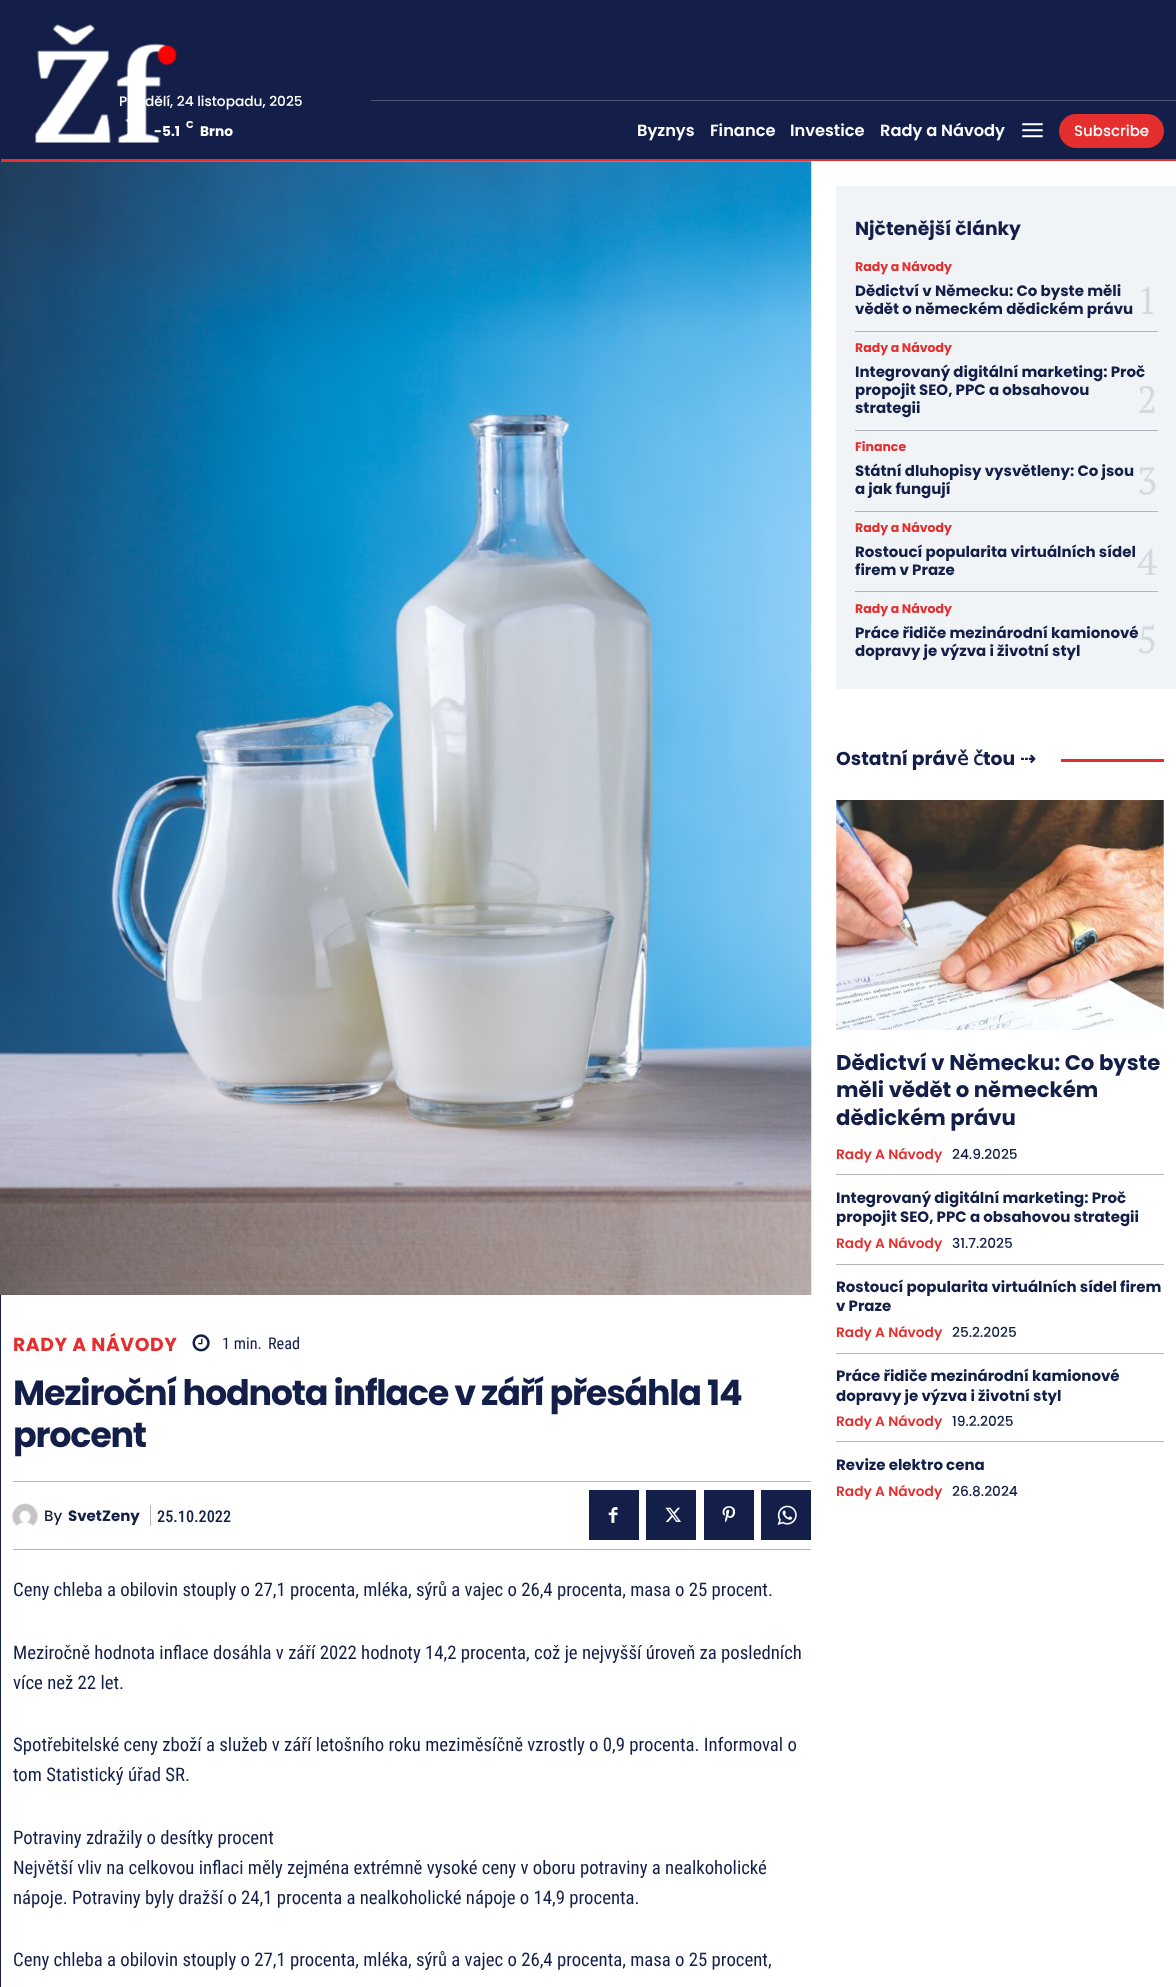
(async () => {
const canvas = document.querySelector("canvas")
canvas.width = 1176
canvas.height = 1987
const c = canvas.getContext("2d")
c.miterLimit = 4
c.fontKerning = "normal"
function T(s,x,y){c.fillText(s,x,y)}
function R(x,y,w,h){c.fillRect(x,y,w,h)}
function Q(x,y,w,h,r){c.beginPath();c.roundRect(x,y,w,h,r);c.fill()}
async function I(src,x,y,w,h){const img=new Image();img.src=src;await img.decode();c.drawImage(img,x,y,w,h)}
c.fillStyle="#131f49"
R(0,0,1176,1987)
await I("1.png",35,24,142,119)
c.font="500 13.75px Poppins"
c.fillStyle="#fff"
T("P",119,106)
T("dělí, 24 listopadu, 2025",145,106)
await I("2.png",125,119,3,17)
c.font="bold 13.75px Poppins"
T("-5.1",154,136)
c.font="bold 10px Poppins"
T("C",186,128)
c.font="bold 13.75px Poppins"
T("Brno",200,136)
c.fillStyle="#4e5777"
R(371,100,805,1)
c.font="600 16.25px Poppins"
c.fillStyle="#fff"
T("Byznys",637,136)
T("Finance",710,136)
T("Investice",790,136)
T("Rady a Návody",880,136)
await I("3.png",1022,123,21,15)
c.fillStyle="#e52e2e"
Q(1059,114,105,34,17)
c.font="500 15px Poppins"
c.fillStyle="#fff"
T("Subscribe",1074,136)
c.fillStyle="#e52e2e"
R(1,159,1175,2)
c.fillStyle="#fff"
R(1,161,1175,1826)
c.fillStyle="#f1f4f7"
R(836,186,340,503)
c.font="bold 18.75px Poppins"
c.fillStyle="#131f49"
T("Njčtenější články",855,235)
c.font="bold 12.5px Poppins"
c.fillStyle="#e52e2e"
T("Rady a Návody",855,271)
c.font="bold 15px Poppins"
c.fillStyle="#131f49"
T("Dědictví v Německu: Co byste měli",855,296)
T("vědět o německém dědickém právu",855,314)
c.fillStyle="#b1b4bc"
R(855,331,303,1)
c.font="38px PT Serif"
c.fillStyle="#d2dae1"
T("1",1137,314)
c.font="bold 12.5px Poppins"
c.fillStyle="#e52e2e"
T("Rady a Návody",855,352)
c.font="bold 15px Poppins"
c.fillStyle="#131f49"
T("Integrovaný digitální marketing: Proč",855,377)
T("propojit SEO, PPC a obsahovou",855,395)
T("strategii",855,413)
c.fillStyle="#b1b4bc"
R(855,430,303,1)
c.font="38px PT Serif"
c.fillStyle="#d2dae1"
T("2",1137,413)
c.font="bold 12.5px Poppins"
c.fillStyle="#e52e2e"
T("Finance",855,451)
c.font="bold 15px Poppins"
c.fillStyle="#131f49"
T("Státní dluhopisy vysvětleny: Co jsou",855,476)
T("a jak fungují",855,494)
c.fillStyle="#b1b4bc"
R(855,511,303,1)
c.font="38px PT Serif"
c.fillStyle="#d2dae1"
T("3",1137,494)
c.font="bold 12.5px Poppins"
c.fillStyle="#e52e2e"
T("Rady a Návody",855,532)
c.font="bold 15px Poppins"
c.fillStyle="#131f49"
T("Rostoucí popularita virtuálních sídel",855,557)
T("firem v Praze",855,575)
c.fillStyle="#b1b4bc"
R(855,591,303,1)
c.font="38px PT Serif"
c.fillStyle="#d2dae1"
T("4",1137,575)
c.font="bold 12.5px Poppins"
c.fillStyle="#e52e2e"
T("Rady a Návody",855,613)
c.font="bold 15px Poppins"
c.fillStyle="#131f49"
T("Práce řidiče mezinárodní kamionové",855,638)
T("dopravy je výzva i životní styl",855,656)
c.font="38px PT Serif"
c.fillStyle="#d2dae1"
T("5",1137,653)
c.font="bold 18.75px Poppins"
c.fillStyle="#131f49"
T("Ostatní práv",836,765)
c.font="bold 18.75px DejaVu Sans"
T("ě",957,765)
T("č",973,765)
c.font="bold 18.75px Poppins"
T("tou",983,765)
c.font="bold 18.75px DejaVu Sans"
T("⇢",1020,765)
c.fillStyle="#e52e2e"
R(1061,759,103,3)
await I("4.png",836,800,328,230)
c.font="bold 21.25px Poppins"
c.fillStyle="#131f49"
T("Dědictví v Německu: Co byste",836,1070)
T("měli vědět o německém",836,1097)
T("dědickém právu",836,1125)
c.font="600 13.75px Poppins"
c.fillStyle="#e52e2e"
T("Rady A Návody",836,1159)
c.font="500 13.75px Poppins"
c.fillStyle="#131f49"
T("24.9.2025",952,1159)
c.fillStyle="#b1b4bc"
R(836,1174,328,1)
c.font="bold 15px Poppins"
c.fillStyle="#131f49"
T("Integrovaný digitální marketing: Proč",836,1203)
T("propojit SEO, PPC a obsahovou strategii",836,1222)
c.font="600 13.75px Poppins"
c.fillStyle="#e52e2e"
T("Rady A Návody",836,1248)
c.font="500 13.75px Poppins"
c.fillStyle="#131f49"
T("31.7.2025",952,1248)
c.fillStyle="#b1b4bc"
R(836,1264,328,1)
c.font="bold 15px Poppins"
c.fillStyle="#131f49"
T("Rostoucí popularita virtuálních sídel firem",836,1292)
T("v Praze",836,1311)
c.font="600 13.75px Poppins"
c.fillStyle="#e52e2e"
T("Rady A Návody",836,1337)
c.font="500 13.75px Poppins"
c.fillStyle="#131f49"
T("25.2.2025",952,1337)
c.fillStyle="#b1b4bc"
R(836,1353,328,1)
c.font="bold 15px Poppins"
c.fillStyle="#131f49"
T("Práce řidiče mezinárodní kamionové",836,1381)
T("dopravy je výzva i životní styl",836,1401)
c.font="600 13.75px Poppins"
c.fillStyle="#e52e2e"
T("Rady A Návody",836,1426)
c.font="500 13.75px Poppins"
c.fillStyle="#131f49"
T("19.2.2025",952,1426)
c.fillStyle="#b1b4bc"
R(836,1441,328,1)
c.font="bold 15px Poppins"
c.fillStyle="#131f49"
T("Revize elektro cena",836,1470)
c.font="600 13.75px Poppins"
c.fillStyle="#e52e2e"
T("Rady A Návody",836,1496)
c.font="500 13.75px Poppins"
c.fillStyle="#131f49"
T("26.8.2024",952,1496)
await I("5.png",0,161,812,1134)
c.letterSpacing="0.6px"
c.font="bold 18.75px Poppins"
c.fillStyle="#e52e2e"
T("RADY A NÁVODY",13,1351)
await I("6.png",192,1334,18,18)
c.letterSpacing="0px"
c.font="16.25px Roboto Condensed"
c.fillStyle="#131f49"
T("1 min.",222,1349)
T("Read",268,1349)
c.letterSpacing="-1.25px"
c.font="bold 35px Poppins"
T("Meziroční hodnota inflace v září přesáhla 14",13,1405)
T("procent",13,1447)
c.fillStyle="#b1b4bc"
R(13,1481,798,1)
R(13,1549,798,1)
await I("7.png",12,1503,26,23)
c.letterSpacing="0px"
c.font="500 15px Poppins"
c.fillStyle="#131f49"
T("By",44,1521)
c.font="bold 15px Poppins"
T("SvetZeny",68,1521)
c.fillStyle="#b1b4bc"
R(150,1505,1,21)
c.font="500 16.25px Roboto Condensed"
c.fillStyle="#131f49"
T("25.10.2022",157,1522)
R(589,1490,50,50)
await I("8.png",608,1507,10,16)
R(646,1490,50,50)
await I("9.png",665,1507,16,15)
R(704,1490,50,50)
await I("10.png",722,1506,14,17)
R(761,1490,50,50)
await I("11.png",777,1505,20,20)
c.font="18.75px Roboto Condensed"
T("Ceny chleba a obilovin stouply o 27,1 procenta, mléka, sýrů a vajec o 26,4 procenta, masa o 25 procent.",13,1596)
T("Meziročně hodnota inflace dosáhla v září 2022 hodnoty 14,2 procenta, což je nejvyšší úroveň za posledních",13,1659)
T("více než 22 let.",13,1689)
T("Spotřebitelské ceny zboží a služeb v září letošního roku meziměsíčně vzrostly o 0,9 procenta. Informoval o",13,1751)
T("tom Statistický úřad SR.",13,1781)
T("Potraviny zdražily o desítky procent",13,1844)
T("Největší vliv na celkovou inflaci měly zejména extrémně vysoké ceny v oboru potraviny a nealkoholické",13,1874)
T("nápoje. Potraviny byly dražší o 24,1 procenta a nealkoholické nápoje o 14,9 procenta.",13,1904)
T("Ceny chleba a obilovin stouply o 27,1 procenta, mléka, sýrů a vajec o 26,4 procenta, masa o 25 procent,",13,1966)
})()
